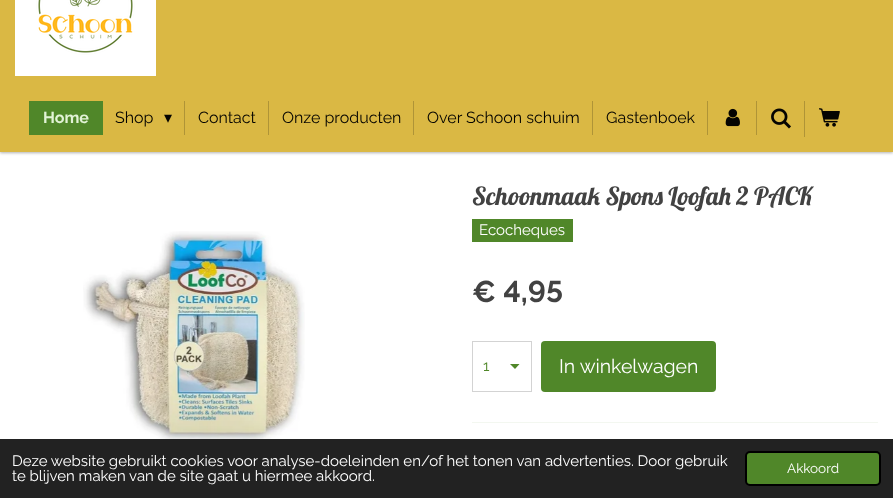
(async () => {
const canvas = document.querySelector("canvas")
canvas.width = 893
canvas.height = 498
const c = canvas.getContext("2d")
c.miterLimit = 4
c.fontKerning = "normal"
function T(s,x,y){c.fillText(s,x,y)}
function R(x,y,w,h){c.fillRect(x,y,w,h)}
function Q(x,y,w,h,r){c.beginPath();c.roundRect(x,y,w,h,r);c.fill()}
async function I(src,x,y,w,h){const img=new Image();img.src=src;await img.decode();c.drawImage(img,x,y,w,h)}
let path
c.fillStyle="#fff"
R(0,0,893,498)
c.fillStyle="#0000004d"
c.filter="blur(1.5px)"
c.beginPath()
c.rect(0,-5,893,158)
c.fill()
c.filter="none"
c.fillStyle="#dab844"
R(0,0,893,152)
await I("1.png",15,0,141,76)
c.fillStyle="#508729"
R(29,101,74,34)
c.font="bold 16px Raleway"
c.fillStyle="#e2f3d6"
T("Home",43,123)
c.font="16px Raleway"
c.fillStyle="#050401"
T("Shop",115,123)
c.font="16px DejaVu Sans"
T("▾",164,123)
c.fillStyle="#af9437"
R(184,101,1,34)
c.font="16px Raleway"
c.fillStyle="#050401"
T("Contact",198,123)
c.fillStyle="#af9437"
R(268,101,1,34)
c.fillStyle="#050401"
T("Onze producten",282,123)
c.fillStyle="#af9437"
R(413,101,1,34)
c.fillStyle="#050401"
T("Over Schoon schuim",427,123)
c.fillStyle="#af9437"
R(592,101,1,34)
c.fillStyle="#050401"
T("Gastenboek",606,123)
c.fillStyle="#af9437"
R(707,101,1,34)
await I("2.png",725,108,15,19)
R(756,101,1,34)
await I("3.png",771,108,20,21)
R(804,101,1,36)
await I("4.png",819,108,21,19)
c.font="25px Lobster"
c.fillStyle="#424242"
T("Schoonmaak Spons Loofah 2 PACK",472,205)
c.fillStyle="#508729"
R(472,219,101,23)
c.font="15px Raleway"
c.fillStyle="#fff"
T("Ecocheques",479,235)
await I("5.png",83,231,222,208)
c.font="bold 30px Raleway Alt"
c.fillStyle="#424242"
T("€ 4,95",472,302)
c.fillStyle="#508729"
path = new Path2D("M515 369l-5-5h9.5z")
c.fill(path)
c.strokeStyle="#d3d3d3"
c.strokeRect(472.5,341.5,59,50)
c.font="15px Raleway"
T("1",483,371)
Q(541,341,175,51,4)
c.font="19.5px Raleway"
c.fillStyle="#fff"
T("In winkelwagen",559,373)
c.fillStyle="#f3f7f0"
R(472,422,406,1)
c.fillStyle="#222"
R(0,439,893,59)
c.font="15px Raleway"
c.fillStyle="#fff"
T("Deze website gebruikt cookies voor analyse-doeleinden en/of het tonen van advertenties. Door gebruik",12,466)
T("te blijven maken van de site gaat u hiermee akkoord.",12,481)
c.fillStyle="#508729"
c.beginPath()
c.roundRect(746,452,134,33,4)
c.fill()
c.strokeStyle="#000"
c.lineWidth=2
c.stroke()
c.font="13.5px Raleway"
c.fillStyle="#fff"
T("Akkoord",787,473)
})()
